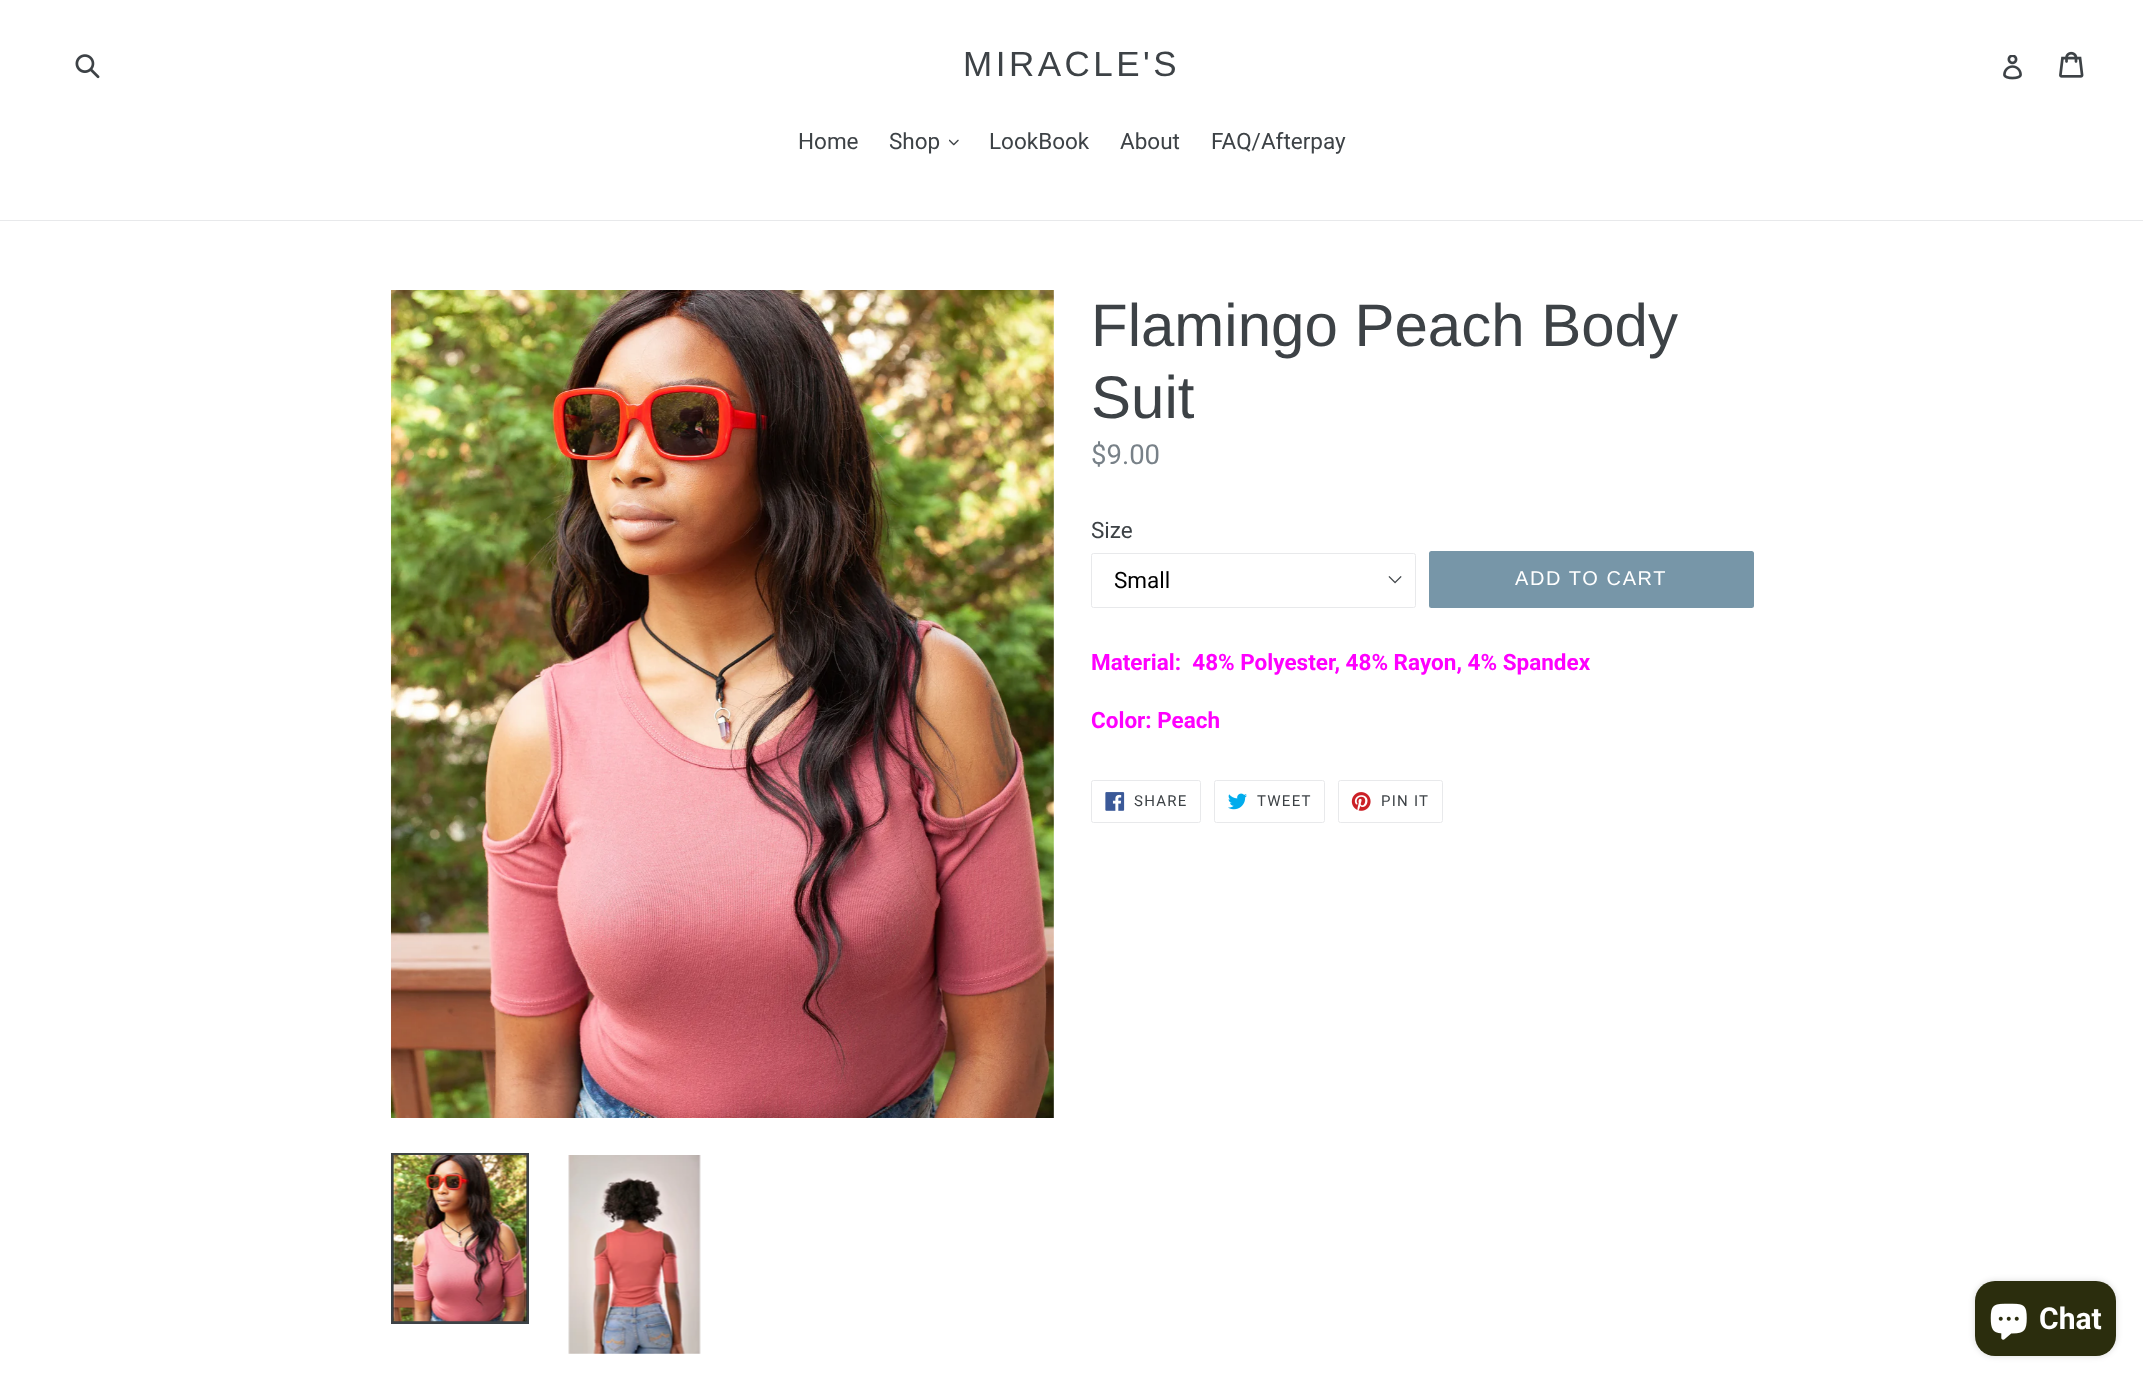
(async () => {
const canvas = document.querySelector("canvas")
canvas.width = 2143
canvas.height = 1382
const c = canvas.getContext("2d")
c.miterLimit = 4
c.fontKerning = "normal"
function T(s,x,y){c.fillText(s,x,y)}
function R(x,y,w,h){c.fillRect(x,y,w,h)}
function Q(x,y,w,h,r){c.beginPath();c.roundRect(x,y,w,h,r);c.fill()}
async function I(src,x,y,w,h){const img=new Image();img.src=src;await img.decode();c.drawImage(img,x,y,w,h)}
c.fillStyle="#fff"
R(0,0,2143,1382)
await I("1.png",75,54,25,25)
c.letterSpacing="3.5px"
c.font="35px Liberation Sans"
c.fillStyle="#3d4246"
T("MIRACLE'S",963,76)
await I("2.png",2003,55,19,25)
await I("3.png",2059,51,25,27)
c.fillStyle="#e8e9eb"
R(0,220,2143,1)
c.letterSpacing="0px"
c.font="22.5px Roboto"
c.fillStyle="#3d4246"
T("Home",798,149)
T("Shop",889,149)
await I("4.png",949,139,10,7)
T("LookBook",989,149)
T("About",1120,149)
T("FAQ/Afterpay",1211,149)
await I("5.png",391,290,663,828)
c.strokeStyle="#3d4246"
c.lineWidth=3
c.strokeRect(392.5,1154.5,135,168)
await I("6.png",393,1155,134,167)
await I("7.png",568,1155,133,199)
c.font="60px Liberation Sans"
T("Flamingo Peach Body",1091,346)
T("Suit",1091,418)
c.font="27.5px Roboto"
c.fillStyle="#788188"
T("$9.00",1091,464)
c.font="22.5px Roboto"
c.fillStyle="#3d4246"
T("Size",1091,538)
await I("8.png",1388,576,14,8)
c.beginPath()
c.roundRect(1091.5,553.5,324,54,2)
c.strokeStyle="#e8e9eb"
c.lineWidth=1
c.stroke()
c.fillStyle="#000"
T("Small",1114,588)
c.fillStyle="#7796a8"
Q(1429,551,325,57,2.5)
c.letterSpacing="1.6px"
c.font="20px Liberation Sans"
c.fillStyle="#fff"
T("ADD TO CART",1515,585)
c.letterSpacing="0px"
c.font="bold 22.5px Roboto"
c.fillStyle="#f0f"
T("Material:  48% Polyester, 48% Rayon, 4% Spandex",1091,670)
T("Color: Peach",1091,728)
c.beginPath()
c.roundRect(1091.5,780.5,109,42,2)
c.stroke()
await I("9.png",1105,792,20,19)
c.letterSpacing="1.25px"
c.font="15px Roboto"
c.fillStyle="#3d4246"
T("SHARE",1134,806)
c.beginPath()
c.roundRect(1214.5,780.5,110,42,2)
c.stroke()
await I("10.png",1228,793,19,17)
T("TWEET",1257,806)
c.beginPath()
c.roundRect(1338.5,780.5,104,42,2)
c.stroke()
await I("11.png",1351,792,20,19)
T("PIN IT",1381,806)
c.fillStyle="#00000026"
c.filter="blur(3px)"
c.beginPath()
c.roundRect(1975,1281,141,75,20)
c.fill()
c.filter="none"
c.fillStyle="#2b2d0d"
Q(1975,1281,141,75,20)
await I("12.png",1990,1303,37,37)
c.letterSpacing="0px"
c.font="bold 30px Roboto"
c.fillStyle="#fff"
T("Chat",2039,1329)
})()
